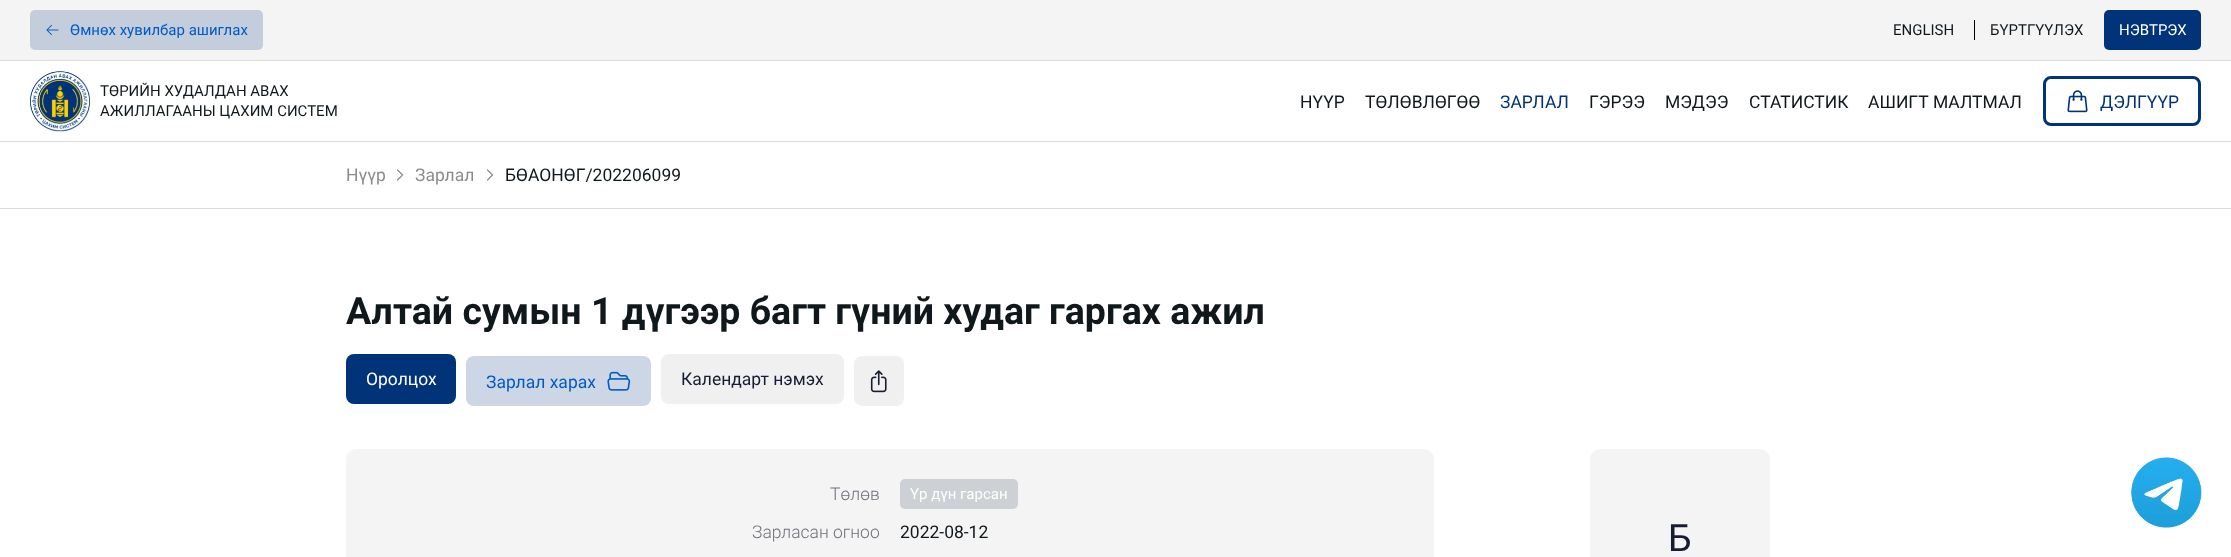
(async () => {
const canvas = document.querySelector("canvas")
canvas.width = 2231
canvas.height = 557
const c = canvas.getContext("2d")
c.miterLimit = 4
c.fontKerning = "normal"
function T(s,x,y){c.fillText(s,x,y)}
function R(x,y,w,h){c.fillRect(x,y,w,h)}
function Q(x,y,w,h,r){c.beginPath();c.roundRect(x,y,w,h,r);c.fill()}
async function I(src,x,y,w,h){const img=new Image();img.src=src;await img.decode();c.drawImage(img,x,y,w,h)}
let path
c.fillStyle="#fff"
R(0,0,2231,557)
c.fillStyle="#f4f4f5"
R(0,0,2231,60)
c.fillStyle="#c3cddc"
Q(30,10,233,40,5)
await I("1.png",46,24,13,12)
c.font="15px Roboto"
c.fillStyle="#005bc4"
T("Өмнөх хувилбар ашиглах",70,35)
c.fillStyle="#11181c"
T("ENGLISH",1893,35)
c.fillStyle="#000"
R(1974,20,1,20)
c.fillStyle="#11181c"
T("БҮРТГҮҮЛЭХ",1990,35)
c.fillStyle="#003378"
Q(2104,10,97,40,5)
c.fillStyle="#fff"
T("НЭВТРЭХ",2119,35)
c.fillStyle="#dbdbdb"
R(0,60,2231,1)
R(0,141,2231,1)
await I("2.png",30,71,60,61)
c.fillStyle="#11181c"
T("ТӨРИЙН ХУДАЛДАН АВАХ",100,96)
T("АЖИЛЛАГААНЫ ЦАХИМ СИСТЕМ",100,116)
c.font="17.5px Roboto"
T("НҮҮР",1300,108)
T("ТӨЛӨВЛӨГӨӨ",1365,108)
c.fillStyle="#003378"
T("ЗАРЛАЛ",1500,108)
c.fillStyle="#11181c"
T("ГЭРЭЭ",1589,108)
T("МЭДЭЭ",1665,108)
T("СТАТИСТИК",1749,108)
T("АШИГТ МАЛТМАЛ",1868,108)
c.beginPath()
c.roundRect(2044.5,77.5,155,47,6.5)
c.strokeStyle="#003378"
c.lineWidth=3
c.stroke()
await I("3.png",2067,90,21,23)
c.fillStyle="#003378"
T("ДЭЛГҮҮР",2100,108)
c.fillStyle="#dbdbdb"
R(0,208,2231,1)
c.fillStyle="#888c8e"
T("Нүүр",346,181)
path = new Path2D("M397.5 180l5-5l-5-5")
c.strokeStyle="#888c8e"
c.lineWidth=1.2
c.lineCap="round"
c.lineJoin="round"
c.stroke(path)
T("Зарлал",415,181)
path = new Path2D("M487.5 180l5-5l-5-5")
c.stroke(path)
c.fillStyle="#11181c"
T("БӨАОНӨГ/202206099",505,181)
c.font="bold 37.5px Roboto"
T("Алтай сумын 1 дүгээр багт гүний худаг гаргах ажил",346,324)
c.fillStyle="#003378"
Q(346,354,110,50,8)
c.font="17.5px Roboto"
c.fillStyle="#fff"
T("Оролцох",366,385)
c.fillStyle="#ccd6e4"
Q(466,356,185,50,8)
c.fillStyle="#005bc4"
T("Зарлал харах",486,388)
await I("4.png",607,371,24,20)
c.fillStyle="#f0f0f0"
Q(661,354,183,50,8)
c.fillStyle="#181c32"
T("Календарт нэмэх",681,385)
c.fillStyle="#f0f0f0"
Q(854,356,50,50,8)
await I("5.png",870,370,17,23)
c.fillStyle="#f4f4f5"
Q(346,449,1088,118,10)
c.font="300 17.5px Roboto"
c.fillStyle="#71717a"
T("Төлөв",830,500)
c.fillStyle="#cdd0d4"
Q(900,479,118,30,5)
c.font="15px Roboto"
c.fillStyle="#fff"
T("Үр дүн гарсан",910,499)
c.font="300 17.5px Roboto"
c.fillStyle="#71717a"
T("Зарласан огноо",752,538)
c.font="17.5px Roboto"
c.fillStyle="#11181c"
T("2022-08-12",900,538)
c.fillStyle="#f4f4f5"
Q(1590,449,180,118,10)
c.font="37.5px Roboto"
c.fillStyle="#181c32"
T("Б",1668,551)
await I("6.png",2131,457,71,71)
})()
